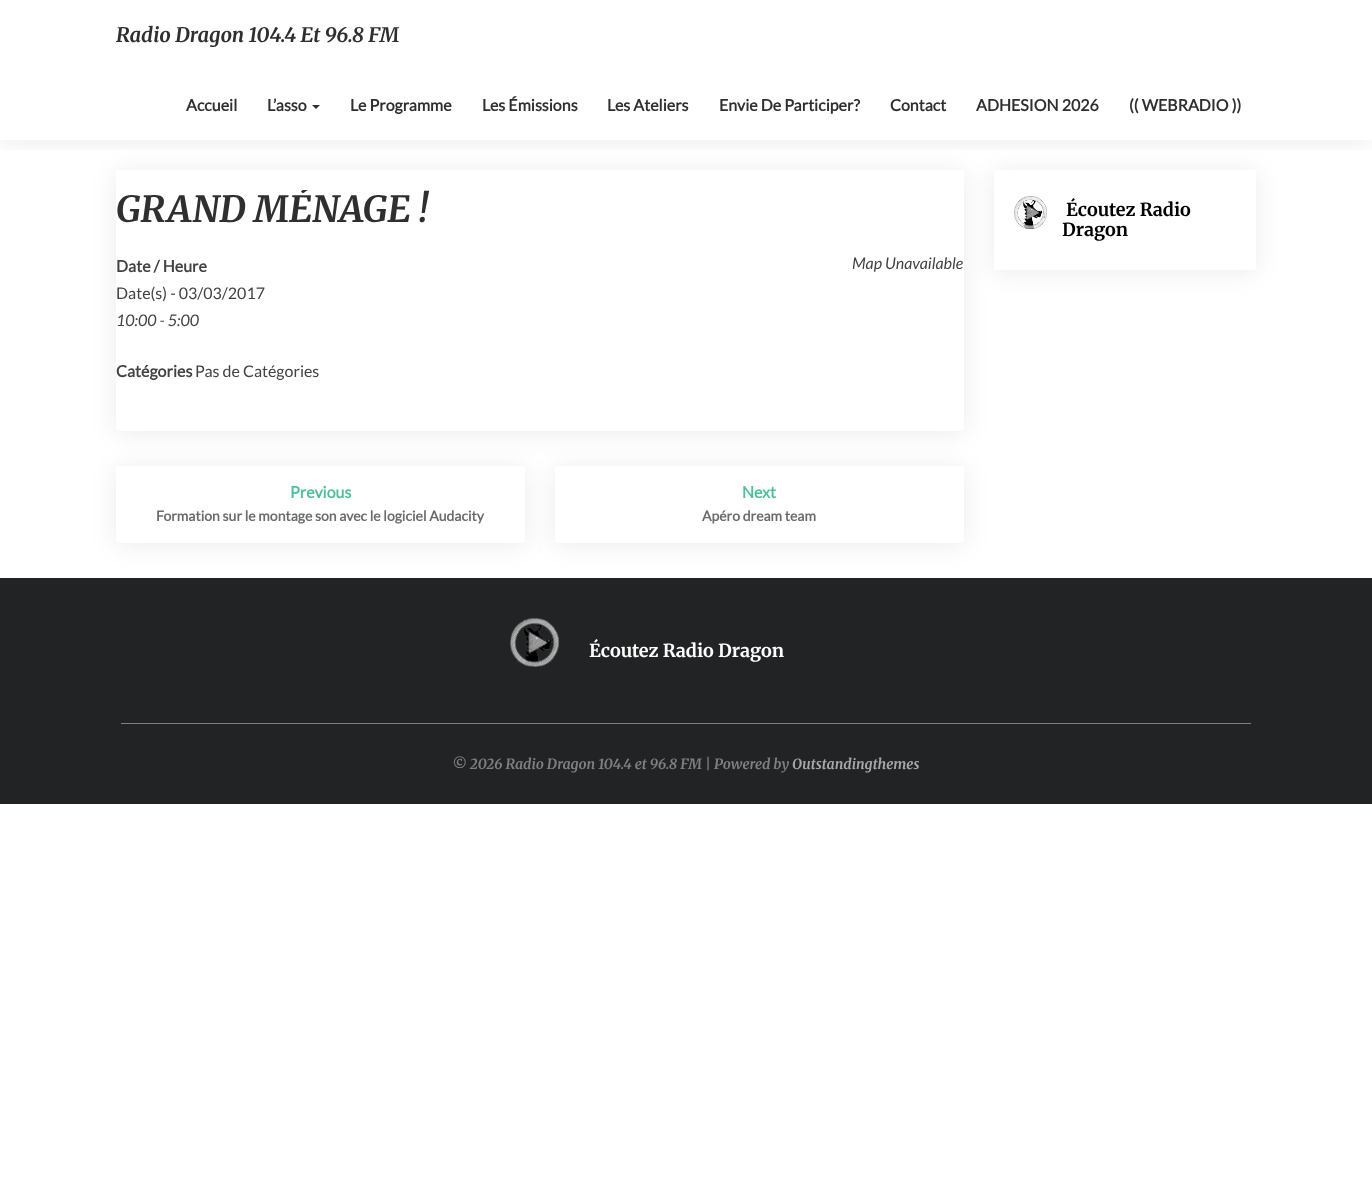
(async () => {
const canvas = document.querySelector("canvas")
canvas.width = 1372
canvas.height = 1188
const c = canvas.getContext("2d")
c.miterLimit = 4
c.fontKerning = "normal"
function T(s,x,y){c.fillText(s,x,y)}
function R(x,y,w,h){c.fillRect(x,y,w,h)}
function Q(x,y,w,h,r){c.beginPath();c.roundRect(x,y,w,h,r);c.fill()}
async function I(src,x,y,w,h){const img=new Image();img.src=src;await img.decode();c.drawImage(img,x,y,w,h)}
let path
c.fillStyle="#fff"
R(0,0,1372,1188)
c.fillStyle="#00000014"
c.filter="blur(12.5px)"
c.beginPath()
c.roundRect(116,172,848,261,3)
c.fill()
c.filter="none"
c.fillStyle="#fff"
Q(116,170,848,261,3)
c.save()
c.beginPath()
c.rect(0,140,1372,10)
c.clip()
c.fillStyle="#00000014"
c.filter="blur(12.5px)"
c.beginPath()
c.rect(0,2,1372,140)
c.fill()
c.filter="none"
c.restore()
c.font="italic 300 20px Merriweather"
c.fillStyle="#2f2f2f"
T("Radio Dragon 104.4 Et 96.8 FM",116,42)
c.font="bold 16px Lato"
T("Accueil",186,111)
T("L’asso",267,111)
c.fillStyle="#333"
path = new Path2D("M312 105h8l-4 4z")
c.fill(path)
c.fillStyle="#2f2f2f"
T("Le Programme",350,111)
T("Les Émissions",482,111)
T("Les Ateliers",607,111)
T("Envie De Participer?",719,111)
T("Contact",890,111)
T("ADHESION 2026",976,111)
T("(( WEBRADIO ))",1129,111)
c.save()
c.beginPath()
c.rect(116,190,848,40)
c.clip()
c.font="italic 300 36px Merriweather"
T("GRAND MÉNAGE !",116,222)
c.restore()
c.fillStyle="#424242"
T("Date / Heure",116,272)
c.font="16px Lato"
T("Date(s) - 03/03/2017",116,299)
c.font="italic 16px Lato"
T("10:00 - 5:00",116,326)
T("Map Unavailable",852,269)
c.font="bold 16px Lato"
T("Catégories",116,377)
c.font="16px Lato"
T("Pas de Catégories",195,377)
c.fillStyle="#212324"
R(0,578,1372,226)
c.fillStyle="#00000014"
c.filter="blur(12.5px)"
c.beginPath()
c.roundRect(116,468,409,77,3)
c.fill()
c.filter="none"
c.fillStyle="#fff"
Q(116,466,409,77,3)
c.font="bold 16px Lato"
c.fillStyle="#4dbf99"
T("Previous",290,498)
c.font="bold 14px Lato"
c.fillStyle="#6b6b6b"
T("Formation sur le montage son avec le logiciel Audacity",156,521)
c.fillStyle="#00000014"
c.filter="blur(12.5px)"
c.beginPath()
c.roundRect(555,468,409,77,3)
c.fill()
c.filter="none"
c.fillStyle="#fff"
Q(555,466,409,77,3)
c.font="bold 16px Lato"
c.fillStyle="#4dbf99"
T("Next",742,498)
c.font="bold 14px Lato"
c.fillStyle="#6b6b6b"
T("Apéro dream team",702,521)
c.save()
path = new Path2D("M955 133h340v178h-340zm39 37h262v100h-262z")
c.clip(path,"evenodd")
c.fillStyle="#00000014"
c.filter="blur(12.5px)"
c.beginPath()
c.rect(994,172,262,100)
c.fill()
c.filter="none"
c.restore()
await I("1.png",1014,196,33,33)
c.font="300 18px Merriweather"
c.fillStyle="#000"
T("Écoutez Radio",1066,216)
T("Dragon",1062,236)
await I("2.png",510,618,49,49)
c.fillStyle="#fff"
T("Écoutez Radio Dragon",589,657)
c.fillStyle="#7f7f7f"
R(121,723,1130,1)
c.font="italic 300 14px Merriweather"
T("© 2026 Radio Dragon 104.4 et 96.8 FM | Powered by",452,769)
c.fillStyle="#a7a7a7"
T("Outstandingthemes",792,769)
})()
